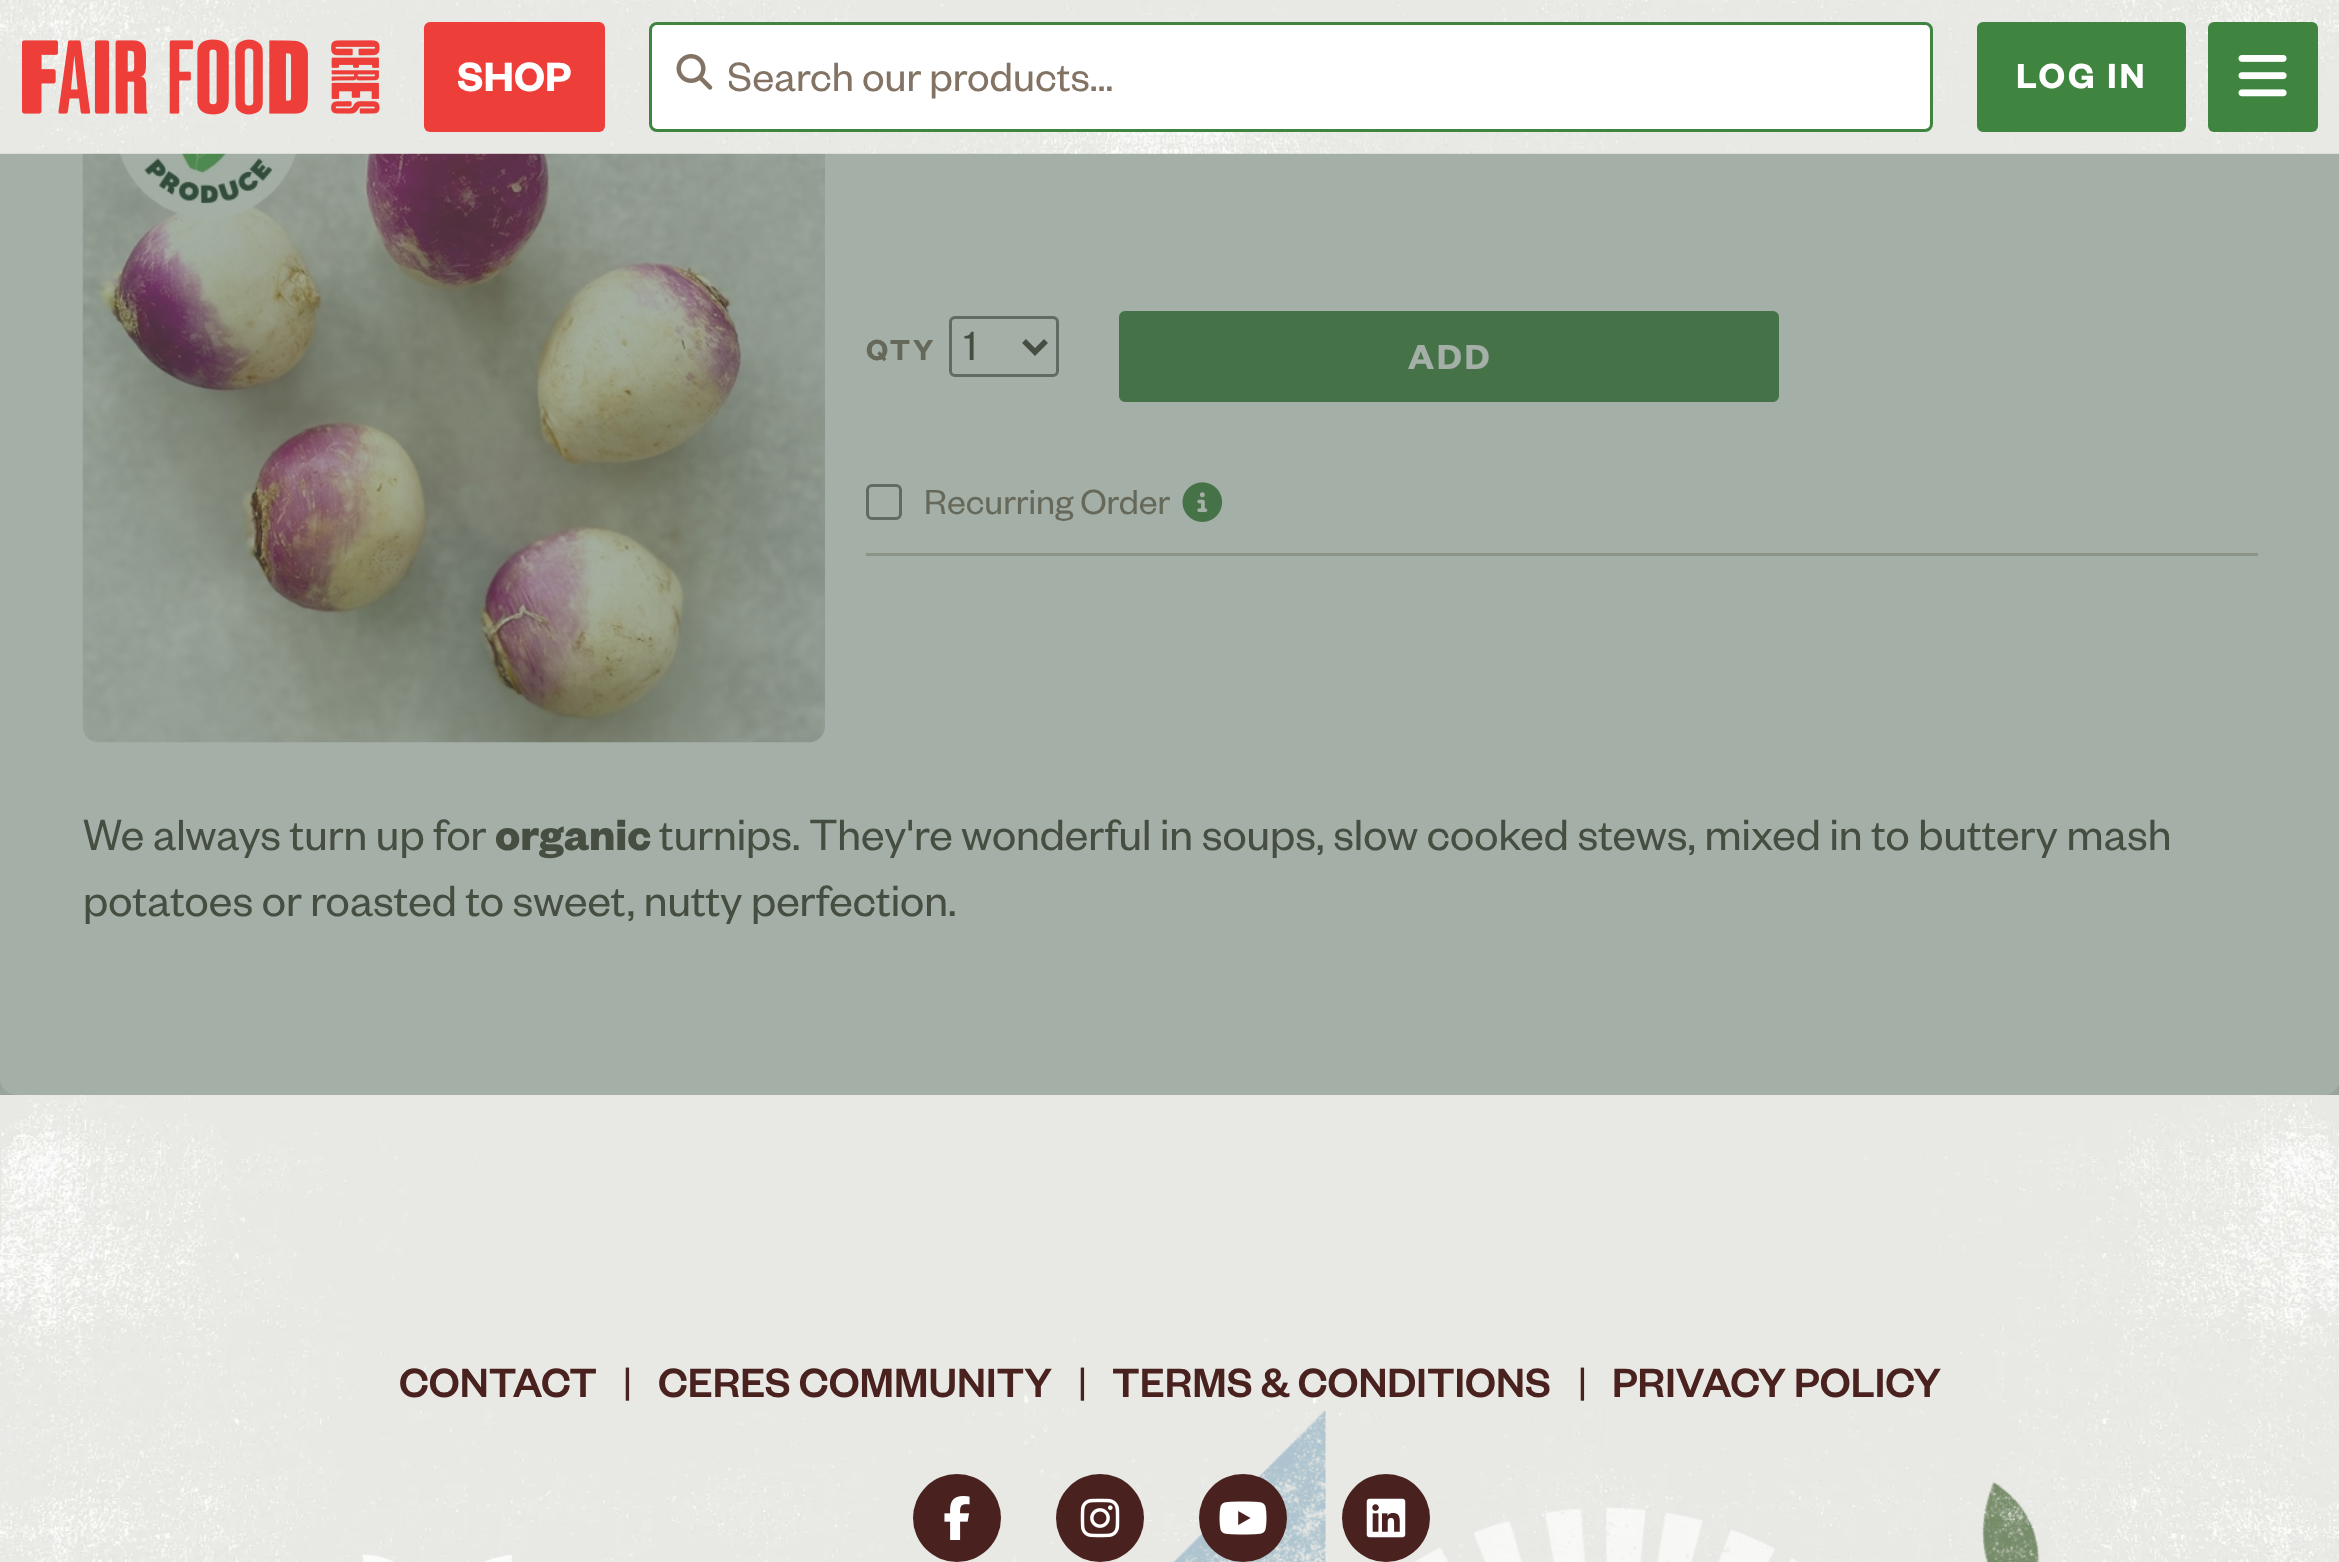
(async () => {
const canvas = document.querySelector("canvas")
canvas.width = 2339
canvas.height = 1562
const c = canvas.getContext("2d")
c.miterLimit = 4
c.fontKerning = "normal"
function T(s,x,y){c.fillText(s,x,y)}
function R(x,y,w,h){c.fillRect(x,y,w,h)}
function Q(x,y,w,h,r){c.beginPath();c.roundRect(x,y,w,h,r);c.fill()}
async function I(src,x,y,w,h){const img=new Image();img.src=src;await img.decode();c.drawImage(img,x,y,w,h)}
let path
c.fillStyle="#fff"
R(0,0,2339,1562)
await I("1.png",0,1078,2339,484)
Q(0,-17,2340,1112,17)
await I("6.png",82,153,743,590)
c.fillStyle="#cec7bf"
R(866,553,1392,3)
c.letterSpacing="2.75px"
c.font="600 27.5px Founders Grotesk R"
c.fillStyle="#837364"
T("QTY",866,360)
c.beginPath()
c.roundRect(950.5,317.5,107,58,4.5)
c.strokeStyle="#767676"
c.lineWidth=3
c.stroke()
path = new Path2D("M1024 341l11 11l11-11")
c.strokeStyle="#433c32"
c.lineWidth=5.5
c.stroke(path)
c.letterSpacing="0px"
c.font="38.5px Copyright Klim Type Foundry"
c.fillStyle="#433c32"
T("1",964,360)
c.fillStyle="#40853f"
c.beginPath()
c.roundRect(1120.5,312.5,657,88,4.5)
c.fill()
c.strokeStyle="#40853f"
c.lineWidth=3
c.stroke()
c.letterSpacing="2.75px"
c.font="600 33px Founders Grotesk R"
c.fillStyle="#fff"
T("ADD",1408,369)
c.beginPath()
c.roundRect(867.5,485.5,33,33,4.5)
c.strokeStyle="#767676"
c.stroke()
c.letterSpacing="0px"
c.font="33px Copyright Klim Type Foundry"
c.fillStyle="#837364"
T("Recurring Order",924,514)
await I("7.png",1182,482,41,40)
c.font="41.25px Copyright Klim Type Foundry"
c.fillStyle="#433c32"
T("We always turn up for",83,850)
c.font="bold 41.25px Copyright Klim Type Foundry"
T("organic",495,850)
c.font="41.25px Copyright Klim Type Foundry"
T("turnips. They're wonderful in soups, slow cooked stews, mixed in to buttery mash",659,850)
T("potatoes or roasted to sweet, nutty perfection.",83,916)
c.fillStyle="#49605080"
R(0,153,2339,942)
await I("2.png",0,0,2339,154)
await I("3.png",22,39,358,76)
c.fillStyle="#ee3e3a"
Q(424,22,181,110,6)
c.font="600 38.5px Founders Grotesk R"
c.fillStyle="#fff"
T("SHOP",457,91)
c.beginPath()
c.roundRect(650.5,23.5,1281,107,6.5)
c.fill()
c.strokeStyle="#40853f"
c.stroke()
await I("4.png",676,54,37,36)
c.save()
c.beginPath()
c.rect(729,52,1202,50)
c.clip()
c.font="38.5px Copyright Klim Type Foundry"
c.fillStyle="#837364"
T("Search our products…",727,91)
c.restore()
c.fillStyle="#40853f"
c.beginPath()
c.roundRect(1978.5,23.5,206,107,4.5)
c.fill()
c.stroke()
c.letterSpacing="2.75px"
c.font="600 33px Founders Grotesk R"
c.fillStyle="#fff"
T("LOG IN",2016,88)
c.fillStyle="#40853f"
Q(2208,22,110,110,6)
await I("5.png",2238,55,49,42)
c.letterSpacing="0px"
c.font="500 38.5px Founders Grotesk R"
c.fillStyle="#49221f"
T("CONTACT",399,1397)
c.font="38.5px Copyright Klim Type Foundry"
T("|",623,1397)
c.font="500 38.5px Founders Grotesk R"
T("CERES COMMUNITY",658,1397)
c.font="38.5px Copyright Klim Type Foundry"
T("|",1078,1397)
c.font="500 38.5px Founders Grotesk R"
T("TERMS & CONDITIONS",1112,1397)
c.font="38.5px Copyright Klim Type Foundry"
T("|",1578,1397)
c.font="500 38.5px Founders Grotesk R"
T("PRIVACY POLICY",1612,1397)
c.beginPath()
c.arc(957,1518,44,0,7)
c.fill()
await I("8.png",944,1496,26,44)
c.beginPath()
c.arc(1100,1518,44,0,7)
c.fill()
await I("9.png",1080,1498,40,40)
await I("13.png",1173,1410,153,152)
c.beginPath()
c.arc(1243,1518,44,0,7)
c.fill()
await I("10.png",1219,1501,48,34)
await I("14.png",1414,1507,385,55)
c.beginPath()
c.arc(1386,1518,44,0,7)
c.fill()
await I("11.png",1366,1498,40,40)
await I("12.png",362,1554,150,8)
await I("15.png",1982,1482,58,80)
})()
